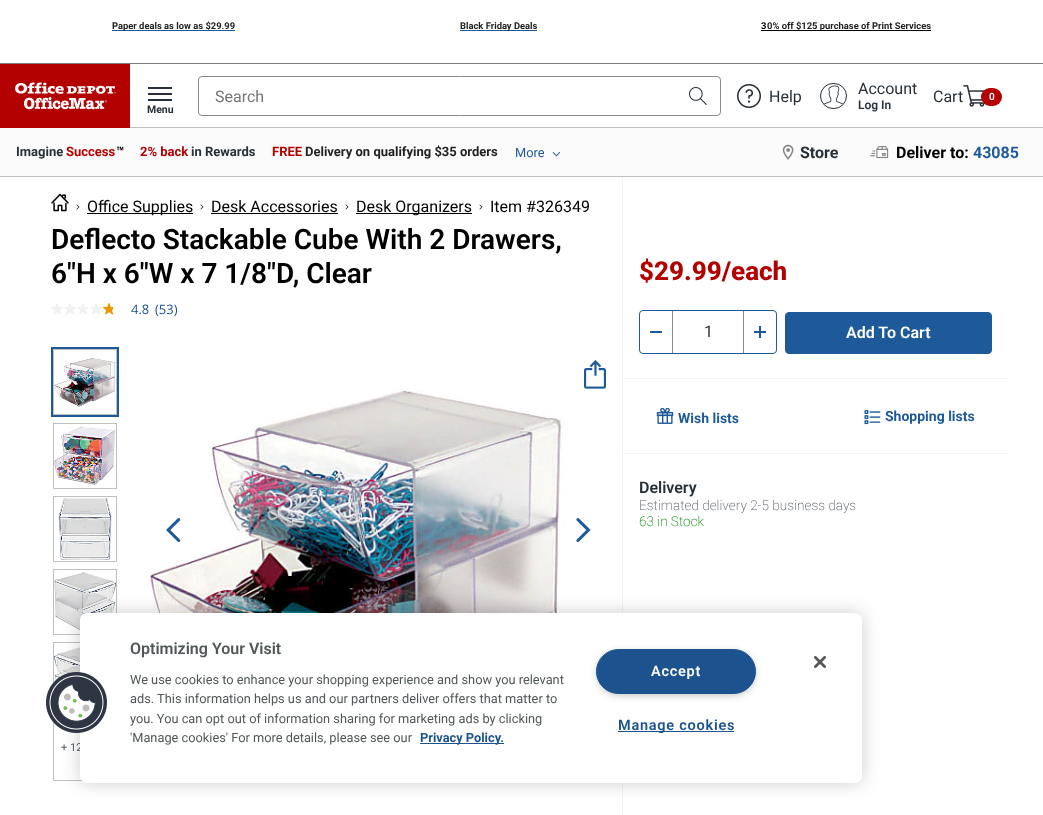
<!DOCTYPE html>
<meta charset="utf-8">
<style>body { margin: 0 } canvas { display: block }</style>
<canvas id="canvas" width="1043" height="815"></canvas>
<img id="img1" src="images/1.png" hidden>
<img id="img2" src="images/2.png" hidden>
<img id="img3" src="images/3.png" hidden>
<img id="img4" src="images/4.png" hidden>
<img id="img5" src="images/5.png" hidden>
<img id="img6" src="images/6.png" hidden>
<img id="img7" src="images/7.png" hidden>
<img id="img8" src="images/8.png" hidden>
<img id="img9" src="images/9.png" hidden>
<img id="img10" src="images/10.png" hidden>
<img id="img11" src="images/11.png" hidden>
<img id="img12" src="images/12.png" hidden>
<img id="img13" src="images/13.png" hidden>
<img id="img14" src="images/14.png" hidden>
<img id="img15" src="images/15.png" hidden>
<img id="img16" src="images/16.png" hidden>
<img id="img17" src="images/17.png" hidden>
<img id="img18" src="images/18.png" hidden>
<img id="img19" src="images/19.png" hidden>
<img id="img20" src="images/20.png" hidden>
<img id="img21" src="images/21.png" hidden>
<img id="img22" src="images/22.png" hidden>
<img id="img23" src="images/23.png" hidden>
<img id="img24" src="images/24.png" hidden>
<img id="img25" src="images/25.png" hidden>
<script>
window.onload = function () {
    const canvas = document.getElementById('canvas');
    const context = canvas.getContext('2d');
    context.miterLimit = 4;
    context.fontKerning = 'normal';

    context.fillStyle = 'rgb(255, 255, 255)';
    context.fillRect(0, 0, 1043, 815);
    context.fillStyle = 'rgb(128, 128, 128)';
    context.fillRect(0, 63, 1043, 1);
    context.fillStyle = 'rgb(30, 90, 153)';
    context.fillRect(112, 30, 91, 1);
    context.fillRect(460, 30, 77, 1);
    context.fillStyle = 'rgb(0, 0, 0)';
    context.fillRect(761, 30, 170, 1);
    context.fillStyle = 'rgb(190, 192, 195)';
    context.fillRect(130, 127, 913, 1);
    context.fillStyle = 'rgb(179, 0, 0)';
    context.fillRect(0, 64, 130, 64);
    context.drawImage(document.getElementById('img1'), 15, 82, 101, 28);
    context.beginPath();
    context.roundRect(198.5, 76.5, 522, 39, 3.5);
    context.strokeStyle = 'rgb(133, 140, 142)';
    context.stroke();
    context.drawImage(document.getElementById('img2'), 689, 87, 18, 18);
    context.drawImage(document.getElementById('img3'), 737, 84, 24, 24);
    context.beginPath();
    context.roundRect(820.5, 83.5, 26, 25, 12.5);
    context.strokeStyle = 'rgb(39, 48, 57)';
    context.stroke();
    context.drawImage(document.getElementById('img4'), 824, 85, 19, 20);
    context.drawImage(document.getElementById('img5'), 963, 85, 22, 22);
    context.beginPath();
    context.roundRect(981, 88, 21, 18, 9);
    context.fill();
    context.fillStyle = 'rgb(39, 48, 57)';
    context.fillRect(148, 87, 24, 2);
    context.fillRect(148, 93, 24, 2);
    context.fillRect(148, 99, 24, 2);
    context.fillStyle = 'rgb(251, 251, 251)';
    context.fillRect(0, 128, 1043, 48);
    context.fillStyle = 'rgb(190, 192, 195)';
    context.fillRect(0, 176, 1043, 1);
    context.drawImage(document.getElementById('img6'), 552, 152, 9, 5);
    context.drawImage(document.getElementById('img7'), 782, 144, 12, 16);
    context.drawImage(document.getElementById('img8'), 870, 146, 19, 13);
    context.fillStyle = 'rgb(243, 243, 243)';
    context.fillRect(622, 177, 1, 638);
    context.drawImage(document.getElementById('img9'), 51, 193, 18, 19);
    context.drawImage(document.getElementById('img10'), 76, 204, 4, 6);
    context.fillStyle = 'rgb(0, 0, 0)';
    context.fillRect(87, 213, 106, 1);
    context.drawImage(document.getElementById('img10'), 200, 204, 4, 6);
    context.fillRect(211, 213, 127, 1);
    context.drawImage(document.getElementById('img10'), 345, 204, 4, 6);
    context.fillRect(356, 213, 116, 1);
    context.drawImage(document.getElementById('img10'), 479, 204, 4, 6);
    context.drawImage(document.getElementById('img11'), 51, 303, 12, 12);
    context.drawImage(document.getElementById('img11'), 64, 303, 12, 12);
    context.drawImage(document.getElementById('img11'), 77, 303, 12, 12);
    context.drawImage(document.getElementById('img11'), 90, 303, 12, 12);
    context.drawImage(document.getElementById('img12'), 103, 303, 12, 12);
    context.drawImage(document.getElementById('img13'), 584, 360, 22, 29);
    context.drawImage(document.getElementById('img14'), 146, 389, 419, 224);
    context.drawImage(document.getElementById('img15'), 166, 518, 15, 24);
    context.drawImage(document.getElementById('img16'), 576, 518, 15, 24);
    context.strokeStyle = 'rgb(30, 90, 153)';
    context.lineWidth = 2;
    context.strokeRect(52, 348, 66, 68);
    context.strokeStyle = 'rgb(190, 192, 195)';
    context.lineWidth = 1;
    context.strokeRect(53.5, 349.5, 63, 65);
    context.drawImage(document.getElementById('img17'), 54, 358, 62, 49);
    context.strokeRect(53.5, 423.5, 63, 65);
    context.drawImage(document.getElementById('img18'), 54, 426, 62, 59);
    context.strokeRect(53.5, 496.5, 63, 65);
    context.drawImage(document.getElementById('img19'), 58, 498, 54, 62);
    context.strokeRect(53.5, 569.5, 63, 65);
    context.drawImage(document.getElementById('img20'), 54, 572, 62, 60);
    context.strokeRect(53.5, 642.5, 63, 65);
    context.drawImage(document.getElementById('img21'), 54, 645, 26, 37);
    context.strokeRect(53.5, 715.5, 65, 65);
    context.fillStyle = 'rgb(243, 243, 243)';
    context.fillRect(623, 378, 385, 1);
    context.beginPath();
    context.roundRect(639.5, 310.5, 137, 43, 3.5);
    context.strokeStyle = 'rgb(30, 90, 153)';
    context.stroke();
    context.fillStyle = 'rgb(30, 90, 153)';
    context.fillRect(650, 331, 12, 2);
    context.fillStyle = 'rgb(133, 140, 142)';
    context.fillRect(743, 311, 1, 42);
    context.fillRect(672, 311, 1, 42);
    context.fillStyle = 'rgb(30, 90, 153)';
    context.fillRect(754, 331, 12, 2);
    context.fillRect(759, 326, 2, 12);
    context.beginPath();
    context.roundRect(785.5, 312.5, 206, 41, 3.5);
    context.fill();
    context.stroke();
    context.drawImage(document.getElementById('img22'), 656, 408, 18, 16);
    context.drawImage(document.getElementById('img23'), 864, 410, 17, 15);
    context.fillStyle = 'rgb(243, 243, 243)';
    context.fillRect(623, 453, 385, 1);
    context.fillStyle = 'rgba(0, 0, 0, 0.2)';
    context.filter = 'blur(9px)';
    context.beginPath();
    context.roundRect(80, 613, 782, 170, 7);
    context.fill();
    context.filter = 'none';
    context.font = 'bold 9.4px Roboto';
    context.fillStyle = 'rgb(34, 34, 34)';
    context.fillText('Paper deals as low as $29.99', 112, 29);
    context.fillStyle = 'rgb(30, 90, 153)';
    context.fillRect(203, 30, 32, 1);
    context.fillStyle = 'rgb(34, 34, 34)';
    context.fillText('Black Friday Deals', 460, 29);
    context.fillStyle = 'rgb(0, 0, 0)';
    context.fillText('3', 761, 29);
    context.fillStyle = 'rgb(34, 34, 34)';
    context.fillText('0% off $125 purchase of Print Services', 767, 29);
    context.font = '16px Roboto';
    context.fillStyle = 'rgb(117, 117, 117)';
    context.fillText('Search', 215, 102);
    context.fillStyle = 'rgb(39, 48, 57)';
    context.fillText('Help', 769, 102);
    context.fillText('Account', 858, 94);
    context.font = '600 12px Roboto';
    context.fillText('Log In', 858, 109);
    context.font = '16px Roboto';
    context.fillText('Cart', 933, 102);
    context.font = '600 10px Roboto';
    context.fillStyle = 'rgb(255, 255, 255)';
    context.fillText('0', 989, 100);
    context.font = 'bold 10.5px Roboto';
    context.fillStyle = 'rgb(39, 48, 57)';
    context.fillText('Menu', 147, 113);
    context.font = 'bold 13px Roboto';
    context.fillText('Imagine', 16, 156);
    context.fillStyle = 'rgb(179, 0, 0)';
    context.fillText('Success', 66, 156);
    context.fillStyle = 'rgb(0, 0, 0)';
    context.fillText('™', 116, 156);
    context.fillStyle = 'rgb(179, 0, 0)';
    context.fillText('2% back', 140, 156);
    context.fillStyle = 'rgb(39, 48, 57)';
    context.fillText('in Rewards', 191, 156);
    context.fillStyle = 'rgb(179, 0, 0)';
    context.fillText('FREE', 272, 156);
    context.fillStyle = 'rgb(34, 34, 34)';
    context.fillText('Delivery on qualifying $35 orders', 305, 156);
    context.font = '12.8px Roboto';
    context.fillStyle = 'rgb(30, 90, 153)';
    context.fillText('More', 515, 157);
    context.font = 'bold 16px Roboto';
    context.fillStyle = 'rgb(39, 48, 57)';
    context.fillText('Store', 800, 158);
    context.fillStyle = 'rgb(0, 0, 0)';
    context.fillText('Deliver to:', 896, 158);
    context.fillStyle = 'rgb(30, 90, 153)';
    context.fillText('43085', 973, 158);
    context.font = '16px Roboto';
    context.fillStyle = 'rgb(0, 0, 0)';
    context.fillText('Office Supplies', 87, 212);
    context.fillText('Desk Accessories', 211, 212);
    context.fillText('Desk Organizers', 356, 212);
    context.fillText('Item #326349', 490, 212);
    context.font = '600 28px Roboto';
    context.fillText('Deflecto Stackable Cube With 2 Drawers,', 51, 249);
    context.fillText('6"H x 6"W x 7 1/8"D, Clear', 51, 283);
    context.font = '13px Open Sans';
    context.fillStyle = 'rgb(28, 82, 141)';
    context.fillText('4.8', 131, 314);
    context.fillText('(53)', 155, 314);
    context.font = '11px Roboto';
    context.fillStyle = 'rgb(82, 89, 97)';
    context.fillText('+ 12', 61, 751);
    context.font = '800 26px Roboto';
    context.fillStyle = 'rgb(179, 0, 0)';
    context.fillText('$29.99/each', 639, 280);
    context.font = '16px Roboto';
    context.fillStyle = 'rgb(39, 48, 57)';
    context.fillText('1', 704, 337);
    context.font = '600 16px Roboto';
    context.fillStyle = 'rgb(255, 255, 255)';
    context.fillText('Add To Cart', 846, 338);
    context.font = 'bold 14px Roboto';
    context.fillStyle = 'rgb(30, 90, 153)';
    context.fillText('Wish lists', 678, 423);
    context.fillText('Shopping lists', 885, 421);
    context.font = '600 16px Roboto';
    context.fillStyle = 'rgb(39, 48, 57)';
    context.fillText('Delivery', 639, 493);
    context.font = '200 13.6px Roboto';
    context.fillStyle = 'rgb(82, 89, 97)';
    context.fillText('Estimated delivery 2-5 business days', 639, 510);
    context.fillStyle = 'rgb(0, 136, 0)';
    context.fillText('63 in Stock', 639, 526);
    context.fillStyle = 'rgb(255, 255, 255)';
    context.beginPath();
    context.roundRect(80, 613, 782, 170, 7);
    context.fill();
    context.drawImage(document.getElementById('img24'), 46, 672, 61, 61);
    context.font = '600 16px Roboto';
    context.fillStyle = 'rgb(81, 87, 88)';
    context.fillText('Optimizing Your Visit', 130, 654);
    context.font = '12.8px Roboto';
    context.fillText('We use cookies to enhance your shopping experience and show you relevant', 130, 684);
    context.fillText('ads. This information helps us and our partners deliver offers that matter to', 130, 703);
    context.fillText('you. You can opt out of information sharing for marketing ads by clicking', 130, 723);
    context.fillText('\'Manage cookies\' For more details, please see our', 130, 742);
    context.fillStyle = 'rgb(28, 82, 141)';
    context.fillRect(420, 743, 84, 1);
    context.font = 'bold 12.8px Roboto';
    context.fillText('Privacy Policy.', 420, 742);
    context.fillStyle = 'rgb(153, 153, 153)';
    context.filter = 'blur(5px)';
    context.beginPath();
    context.roundRect(599, 654, 154, 39, 19.5);
    context.fill();
    context.filter = 'none';
    context.fillStyle = 'rgb(28, 82, 141)';
    context.beginPath();
    context.roundRect(596.5, 649.5, 159, 44, 22);
    context.fill();
    context.strokeStyle = 'rgb(28, 82, 141)';
    context.stroke();
    context.letterSpacing = '0.75px';
    context.font = '600 14.5px Roboto';
    context.fillStyle = 'rgb(255, 255, 255)';
    context.fillText('Accept', 651, 676);
    context.fillStyle = 'rgb(28, 82, 141)';
    context.fillRect(618, 731, 116, 1);
    context.fillText('Manage cookies', 618, 730);
    context.drawImage(document.getElementById('img25'), 814, 656, 12, 12);
};
</script>
